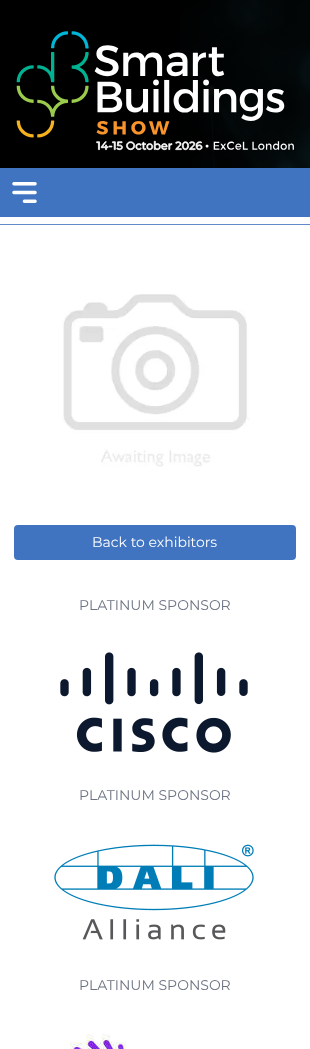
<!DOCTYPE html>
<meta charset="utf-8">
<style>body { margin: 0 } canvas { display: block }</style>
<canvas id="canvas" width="310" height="1049"></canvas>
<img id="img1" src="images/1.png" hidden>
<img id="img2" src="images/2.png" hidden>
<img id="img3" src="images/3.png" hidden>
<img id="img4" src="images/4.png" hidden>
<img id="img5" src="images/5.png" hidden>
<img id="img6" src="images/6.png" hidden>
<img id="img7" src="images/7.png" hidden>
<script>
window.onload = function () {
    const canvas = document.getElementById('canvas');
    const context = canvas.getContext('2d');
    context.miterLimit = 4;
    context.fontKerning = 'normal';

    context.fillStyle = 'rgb(255, 255, 255)';
    context.fillRect(0, 0, 310, 1049);
    context.fillStyle = 'rgb(0, 0, 0)';
    context.fillRect(0, 0, 310, 168);
    context.drawImage(document.getElementById('img1'), 180, 0, 130, 168);
    context.drawImage(document.getElementById('img2'), 16, 31, 278, 120);
    context.fillStyle = 'rgb(65, 116, 192)';
    context.fillRect(0, 168, 310, 49);
    context.drawImage(document.getElementById('img3'), 12, 182, 25, 21);
    context.fillStyle = 'rgb(96, 138, 202)';
    context.fillRect(0, 224, 310, 1);
    context.drawImage(document.getElementById('img4'), 62, 294, 187, 173);
    context.fillStyle = 'rgb(65, 116, 192)';
    context.beginPath();
    context.roundRect(14, 525, 282, 35, 4);
    context.fill();
    context.drawImage(document.getElementById('img5'), 60, 652, 188, 101);
    context.drawImage(document.getElementById('img6'), 54, 844, 200, 96);
    context.drawImage(document.getElementById('img7'), 70, 1034, 56, 15);
    context.font = '14px Montserrat';
    context.fillStyle = 'rgb(255, 255, 255)';
    context.fillText('Back to exhibitors', 92, 547);
    context.fillStyle = 'rgb(107, 114, 128)';
    context.fillText('PLATINUM SPONSOR', 79, 610);
    context.fillText('PLATINUM SPONSOR', 79, 800);
    context.fillText('PLATINUM SPONSOR', 79, 990);
};
</script>
